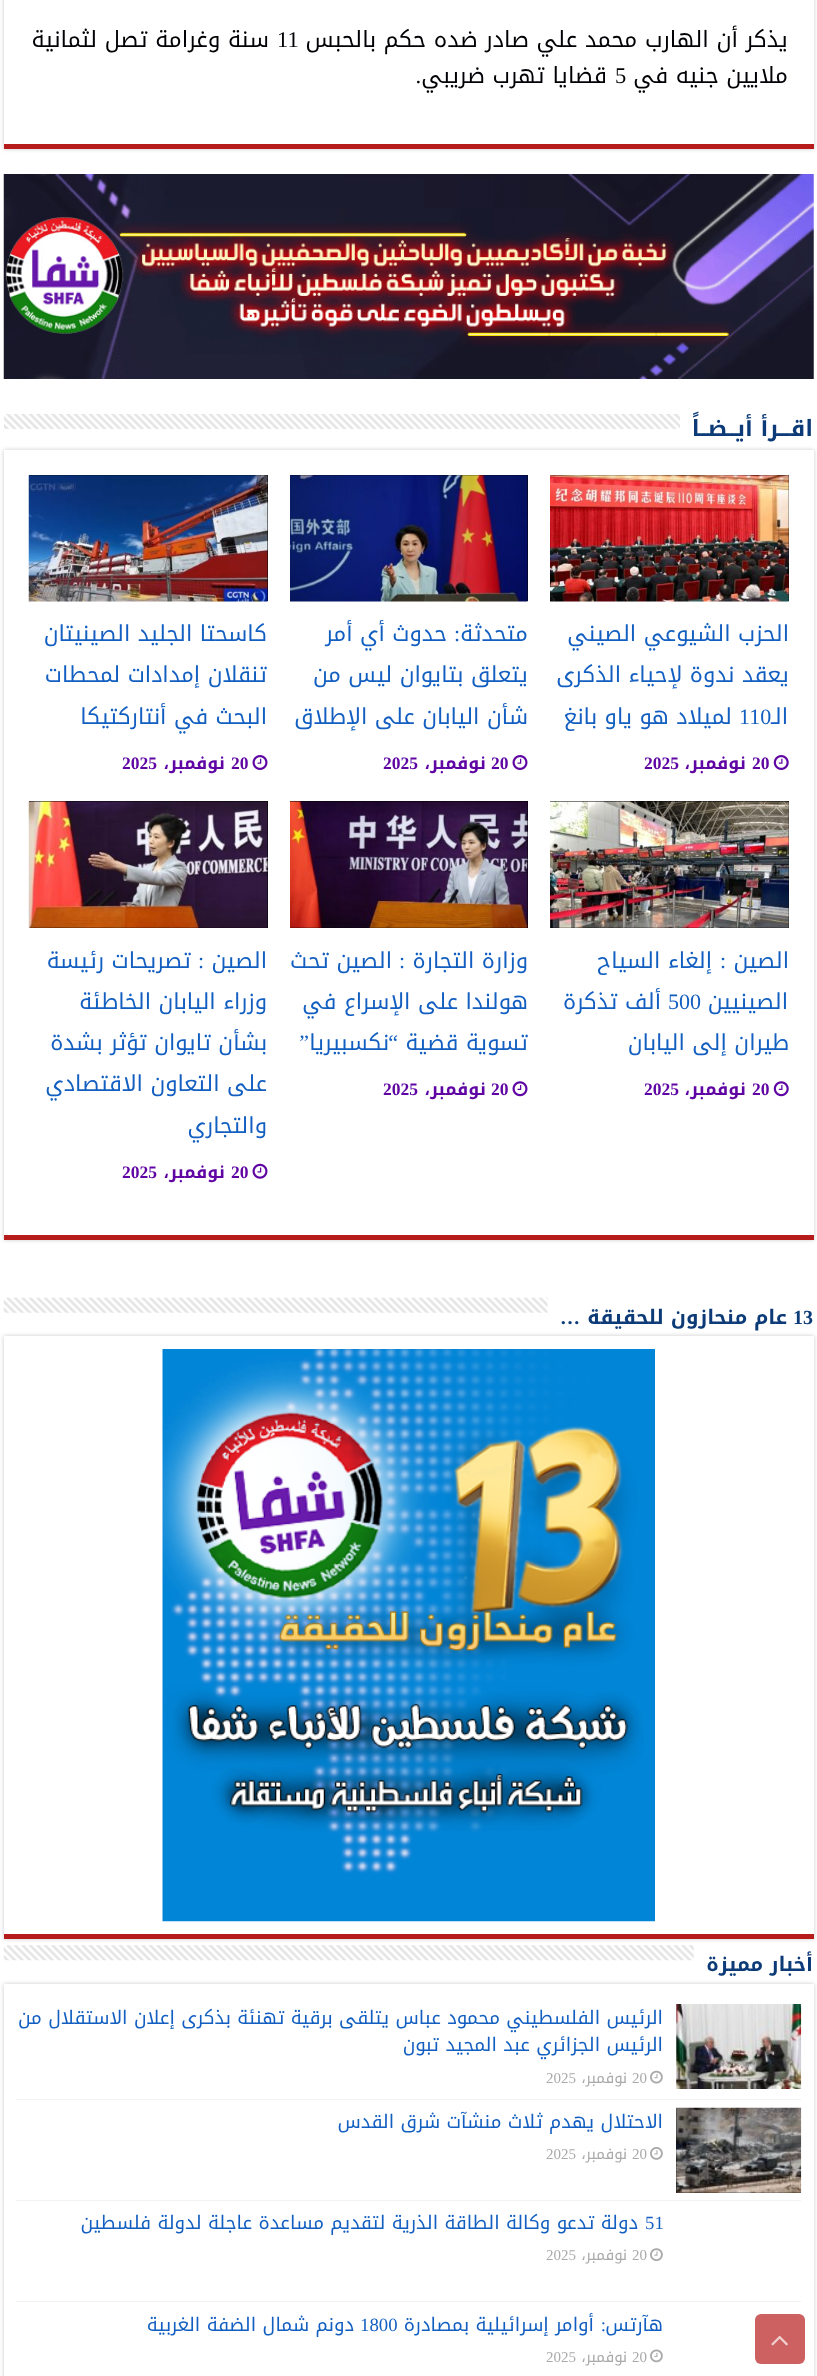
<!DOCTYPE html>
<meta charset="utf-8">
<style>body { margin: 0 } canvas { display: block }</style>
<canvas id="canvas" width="817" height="2376"></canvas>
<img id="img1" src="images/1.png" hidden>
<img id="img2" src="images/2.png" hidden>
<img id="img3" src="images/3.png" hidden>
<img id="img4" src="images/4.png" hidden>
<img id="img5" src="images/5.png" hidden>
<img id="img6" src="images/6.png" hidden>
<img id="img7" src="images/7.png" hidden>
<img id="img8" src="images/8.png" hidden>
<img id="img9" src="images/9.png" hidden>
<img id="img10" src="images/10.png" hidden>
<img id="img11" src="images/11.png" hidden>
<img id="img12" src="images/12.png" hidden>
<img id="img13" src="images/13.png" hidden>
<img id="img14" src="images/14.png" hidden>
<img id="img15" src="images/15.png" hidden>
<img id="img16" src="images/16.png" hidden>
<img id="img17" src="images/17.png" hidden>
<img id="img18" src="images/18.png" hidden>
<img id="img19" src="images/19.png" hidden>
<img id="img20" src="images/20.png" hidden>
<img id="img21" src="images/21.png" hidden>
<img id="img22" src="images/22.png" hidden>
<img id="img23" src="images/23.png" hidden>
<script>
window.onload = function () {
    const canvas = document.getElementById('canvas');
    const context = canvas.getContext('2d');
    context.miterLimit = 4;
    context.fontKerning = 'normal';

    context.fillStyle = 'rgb(255, 255, 255)';
    context.fillRect(0, 0, 817, 2376);
    context.fillStyle = 'rgb(202, 202, 202)';
    context.filter = 'blur(2px)';
    context.beginPath();
    context.rect(4, -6, 810, 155);
    context.fill();
    context.filter = 'none';
    context.fillStyle = 'rgb(255, 255, 255)';
    context.fillRect(4, 0, 810, 144);
    context.fillStyle = 'rgb(183, 28, 28)';
    context.fillRect(4, 144, 810, 5);
    context.drawImage(document.getElementById('img1'), 3, 174, 811, 205);
    context.drawImage(document.getElementById('img2'), 4, 414, 676, 15);
    context.fillStyle = 'rgb(202, 202, 202)';
    context.filter = 'blur(2px)';
    context.beginPath();
    context.rect(4, 450, 810, 790);
    context.fill();
    context.filter = 'none';
    context.fillStyle = 'rgb(255, 255, 255)';
    context.fillRect(4, 450, 810, 785);
    context.fillStyle = 'rgb(183, 28, 28)';
    context.fillRect(4, 1235, 810, 5);
    context.fillStyle = 'rgb(0, 0, 0)';
    context.fillRect(550, 475, 239, 126);
    context.drawImage(document.getElementById('img3'), 550, 475, 239, 127);
    context.drawImage(document.getElementById('img4'), 773, 755, 16, 15);
    context.fillRect(290, 475, 238, 126);
    context.drawImage(document.getElementById('img5'), 290, 475, 238, 127);
    context.drawImage(document.getElementById('img6'), 512, 755, 16, 15);
    context.fillRect(29, 475, 239, 126);
    context.drawImage(document.getElementById('img7'), 28, 475, 240, 127);
    context.drawImage(document.getElementById('img6'), 252, 755, 16, 15);
    context.fillRect(550, 801, 239, 127);
    context.drawImage(document.getElementById('img8'), 550, 801, 239, 127);
    context.drawImage(document.getElementById('img9'), 773, 1081, 16, 16);
    context.fillRect(290, 801, 238, 127);
    context.drawImage(document.getElementById('img10'), 290, 801, 238, 127);
    context.drawImage(document.getElementById('img11'), 512, 1081, 16, 16);
    context.fillRect(29, 801, 239, 127);
    context.drawImage(document.getElementById('img12'), 28, 801, 240, 127);
    context.drawImage(document.getElementById('img13'), 252, 1163, 16, 16);
    context.drawImage(document.getElementById('img14'), 3, 1297, 545, 16);
    context.fillStyle = 'rgb(202, 202, 202)';
    context.filter = 'blur(2px)';
    context.beginPath();
    context.rect(4, 1336, 810, 603);
    context.fill();
    context.filter = 'none';
    context.fillStyle = 'rgb(255, 255, 255)';
    context.fillRect(4, 1336, 810, 598);
    context.fillStyle = 'rgb(183, 28, 28)';
    context.fillRect(4, 1934, 810, 5);
    context.drawImage(document.getElementById('img15'), 162, 1349, 493, 573);
    context.drawImage(document.getElementById('img16'), 3, 1945, 691, 16);
    context.fillStyle = 'rgb(202, 202, 202)';
    context.filter = 'blur(2px)';
    context.beginPath();
    context.rect(4, 1984, 810, 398);
    context.fill();
    context.filter = 'none';
    context.fillStyle = 'rgb(255, 255, 255)';
    context.fillRect(4, 1984, 810, 392);
    context.fillStyle = 'rgb(242, 242, 242)';
    context.fillRect(16, 2099, 785, 1);
    context.drawImage(document.getElementById('img17'), 676, 2004, 126, 85);
    context.drawImage(document.getElementById('img18'), 650, 2070, 13, 14);
    context.fillRect(16, 2200, 785, 1);
    context.fillStyle = 'rgb(0, 0, 0)';
    context.fillRect(676, 2108, 125, 85);
    context.drawImage(document.getElementById('img19'), 676, 2107, 126, 86);
    context.drawImage(document.getElementById('img20'), 650, 2147, 13, 13);
    context.fillStyle = 'rgb(242, 242, 242)';
    context.fillRect(16, 2301, 785, 1);
    context.drawImage(document.getElementById('img21'), 650, 2248, 13, 13);
    context.drawImage(document.getElementById('img22'), 650, 2349, 13, 14);
    context.fillStyle = 'rgb(205, 96, 96)';
    context.beginPath();
    context.roundRect(755, 2314, 50, 50, 6);
    context.fill();
    context.drawImage(document.getElementById('img23'), 771, 2335, 17, 11);
    context.direction = 'rtl';
    context.font = '22.5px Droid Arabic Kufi';
    context.fillStyle = 'rgb(2, 0, 5)';
    context.fillText('يذكر أن الهارب محمد علي صادر ضده حكم بالحبس', 788, 47);
    context.direction = 'ltr';
    context.font = '22.5px Liberation Serif';
    context.fillText('11', 277, 47);
    context.direction = 'rtl';
    context.font = '22.5px Droid Arabic Kufi';
    context.fillText('سنة وغرامة تصل لثمانية', 269, 47);
    context.fillText('ملايين جنيه في', 788, 83);
    context.direction = 'ltr';
    context.font = '22.5px Liberation Serif';
    context.fillText('5', 615, 83);
    context.direction = 'rtl';
    context.font = '22.5px Droid Arabic Kufi';
    context.fillText('قضايا تهرب ضريبي', 607, 83);
    context.font = '22.5px Liberation Serif';
    context.fillText('.', 421, 83);
    context.font = 'bold 22.5px Droid Arabic Kufi';
    context.fillStyle = 'rgb(12, 59, 120)';
    context.fillText('اقـــرأ أيــضــاً', 813, 436);
    context.font = '22px Droid Arabic Kufi';
    context.fillStyle = 'rgb(19, 95, 193)';
    context.fillText('الحزب الشيوعي الصيني', 789, 641);
    context.fillText('يعقد ندوة لإحياء الذكرى', 789, 682);
    context.fillText('الـ', 788, 724);
    context.direction = 'ltr';
    context.font = '22px Liberation Serif';
    context.fillText('110', 739, 724);
    context.direction = 'rtl';
    context.font = '22px Droid Arabic Kufi';
    context.fillText('لميلاد هو ياو بانغ', 732, 724);
    context.direction = 'ltr';
    context.font = 'bold 17.5px Liberation Serif';
    context.fillStyle = 'rgb(95, 5, 163)';
    context.fillText('20', 752, 769);
    context.direction = 'rtl';
    context.font = 'bold 17.5px Droid Arabic Kufi';
    context.fillText('نوفمبر،', 746, 769);
    context.direction = 'ltr';
    context.font = 'bold 17.5px Liberation Serif';
    context.fillText('2025', 644, 769);
    context.direction = 'rtl';
    context.font = '22px Droid Arabic Kufi';
    context.fillStyle = 'rgb(19, 95, 193)';
    context.fillText('متحدثة', 528, 641);
    context.font = '22px Liberation Serif';
    context.fillText(':', 460, 641);
    context.font = '22px Droid Arabic Kufi';
    context.fillText('حدوث أي أمر', 447, 641);
    context.fillText('يتعلق بتايوان ليس من', 528, 682);
    context.fillText('شأن اليابان على الإطلاق', 528, 724);
    context.direction = 'ltr';
    context.font = 'bold 17.5px Liberation Serif';
    context.fillStyle = 'rgb(95, 5, 163)';
    context.fillText('20', 491, 769);
    context.direction = 'rtl';
    context.font = 'bold 17.5px Droid Arabic Kufi';
    context.fillText('نوفمبر،', 486, 769);
    context.direction = 'ltr';
    context.font = 'bold 17.5px Liberation Serif';
    context.fillText('2025', 383, 769);
    context.direction = 'rtl';
    context.font = '22px Droid Arabic Kufi';
    context.fillStyle = 'rgb(19, 95, 193)';
    context.fillText('كاسحتا الجليد الصينيتان', 267, 641);
    context.fillText('تنقلان إمدادات لمحطات', 267, 682);
    context.fillText('البحث في أنتاركتيكا', 267, 724);
    context.direction = 'ltr';
    context.font = 'bold 17.5px Liberation Serif';
    context.fillStyle = 'rgb(95, 5, 163)';
    context.fillText('20', 231, 769);
    context.direction = 'rtl';
    context.font = 'bold 17.5px Droid Arabic Kufi';
    context.fillText('نوفمبر،', 225, 769);
    context.direction = 'ltr';
    context.font = 'bold 17.5px Liberation Serif';
    context.fillText('2025', 122, 769);
    context.direction = 'rtl';
    context.font = '22px Droid Arabic Kufi';
    context.fillStyle = 'rgb(19, 95, 193)';
    context.fillText('الصين', 789, 968);
    context.font = '22px Liberation Serif';
    context.fillText(':', 726, 968);
    context.font = '22px Droid Arabic Kufi';
    context.fillText('إلغاء السياح', 712, 968);
    context.fillText('الصينيين', 788, 1009);
    context.direction = 'ltr';
    context.font = '22px Liberation Serif';
    context.fillText('500', 668, 1009);
    context.direction = 'rtl';
    context.font = '22px Droid Arabic Kufi';
    context.fillText('ألف تذكرة', 661, 1009);
    context.fillText('طيران إلى اليابان', 789, 1050);
    context.direction = 'ltr';
    context.font = 'bold 17.5px Liberation Serif';
    context.fillStyle = 'rgb(95, 5, 163)';
    context.fillText('20', 752, 1095);
    context.direction = 'rtl';
    context.font = 'bold 17.5px Droid Arabic Kufi';
    context.fillText('نوفمبر،', 746, 1095);
    context.direction = 'ltr';
    context.font = 'bold 17.5px Liberation Serif';
    context.fillText('2025', 644, 1095);
    context.direction = 'rtl';
    context.font = '22px Droid Arabic Kufi';
    context.fillStyle = 'rgb(19, 95, 193)';
    context.fillText('وزارة التجارة', 528, 968);
    context.font = '22px Liberation Serif';
    context.fillText(':', 405, 968);
    context.font = '22px Droid Arabic Kufi';
    context.fillText('الصين تحث', 392, 968);
    context.fillText('هولندا على الإسراع في', 528, 1009);
    context.fillText('تسوية قضية', 528, 1050);
    context.font = '22px Liberation Serif';
    context.fillText('“', 398, 1050);
    context.font = '22px Droid Arabic Kufi';
    context.fillText('نكسبيريا', 389, 1050);
    context.font = '22px Liberation Serif';
    context.fillText('”', 309, 1050);
    context.direction = 'ltr';
    context.font = 'bold 17.5px Liberation Serif';
    context.fillStyle = 'rgb(95, 5, 163)';
    context.fillText('20', 491, 1095);
    context.direction = 'rtl';
    context.font = 'bold 17.5px Droid Arabic Kufi';
    context.fillText('نوفمبر،', 486, 1095);
    context.direction = 'ltr';
    context.font = 'bold 17.5px Liberation Serif';
    context.fillText('2025', 383, 1095);
    context.direction = 'rtl';
    context.font = '22px Droid Arabic Kufi';
    context.fillStyle = 'rgb(19, 95, 193)';
    context.fillText('الصين', 267, 968);
    context.font = '22px Liberation Serif';
    context.fillText(':', 204, 968);
    context.font = '22px Droid Arabic Kufi';
    context.fillText('تصريحات رئيسة', 191, 968);
    context.fillText('وزراء اليابان الخاطئة', 267, 1009);
    context.fillText('بشأن تايوان تؤثر بشدة', 267, 1050);
    context.fillText('على التعاون الاقتصادي', 267, 1091);
    context.fillText('والتجاري', 267, 1133);
    context.direction = 'ltr';
    context.font = 'bold 17.5px Liberation Serif';
    context.fillStyle = 'rgb(95, 5, 163)';
    context.fillText('20', 231, 1178);
    context.direction = 'rtl';
    context.font = 'bold 17.5px Droid Arabic Kufi';
    context.fillText('نوفمبر،', 225, 1178);
    context.direction = 'ltr';
    context.font = 'bold 17.5px Liberation Serif';
    context.fillText('2025', 122, 1178);
    context.font = 'bold 20px Liberation Serif';
    context.fillStyle = 'rgb(12, 59, 120)';
    context.fillText('13', 793, 1324);
    context.direction = 'rtl';
    context.font = 'bold 20px Droid Arabic Kufi';
    context.fillText('عام منحازون للحقيقة', 787, 1324);
    context.font = 'bold 20px Liberation Serif';
    context.fillText('…', 580, 1324);
    context.font = 'bold 20px Droid Arabic Kufi';
    context.fillText('أخبار مميزة', 813, 1971);
    context.font = '18.75px Droid Arabic Kufi';
    context.fillStyle = 'rgb(19, 95, 193)';
    context.fillText('الرئيس الفلسطيني محمود عباس يتلقى برقية تهنئة بذكرى إعلان الاستقلال من', 663, 2024);
    context.fillText('الرئيس الجزائري عبد المجيد تبون', 663, 2051);
    context.direction = 'ltr';
    context.font = '15px Liberation Serif';
    context.fillStyle = 'rgb(170, 170, 170)';
    context.fillText('20', 632, 2083);
    context.direction = 'rtl';
    context.font = '15px Droid Arabic Kufi';
    context.fillText('نوفمبر،', 627, 2083);
    context.direction = 'ltr';
    context.font = '15px Liberation Serif';
    context.fillText('2025', 546, 2083);
    context.direction = 'rtl';
    context.font = '18.75px Droid Arabic Kufi';
    context.fillStyle = 'rgb(19, 95, 193)';
    context.fillText('الاحتلال يهدم ثلاث منشآت شرق القدس', 663, 2128);
    context.direction = 'ltr';
    context.font = '15px Liberation Serif';
    context.fillStyle = 'rgb(170, 170, 170)';
    context.fillText('20', 632, 2159);
    context.direction = 'rtl';
    context.font = '15px Droid Arabic Kufi';
    context.fillText('نوفمبر،', 627, 2159);
    context.direction = 'ltr';
    context.font = '15px Liberation Serif';
    context.fillText('2025', 546, 2159);
    context.font = '18.75px Liberation Serif';
    context.fillStyle = 'rgb(19, 95, 193)';
    context.fillText('51', 645, 2229);
    context.direction = 'rtl';
    context.font = '18.75px Droid Arabic Kufi';
    context.fillText('دولة تدعو وكالة الطاقة الذرية لتقديم مساعدة عاجلة لدولة فلسطين', 638, 2229);
    context.direction = 'ltr';
    context.font = '15px Liberation Serif';
    context.fillStyle = 'rgb(170, 170, 170)';
    context.fillText('20', 632, 2260);
    context.direction = 'rtl';
    context.font = '15px Droid Arabic Kufi';
    context.fillText('نوفمبر،', 627, 2260);
    context.direction = 'ltr';
    context.font = '15px Liberation Serif';
    context.fillText('2025', 546, 2260);
    context.direction = 'rtl';
    context.font = '18.75px Droid Arabic Kufi';
    context.fillStyle = 'rgb(19, 95, 193)';
    context.fillText('هآرتس', 663, 2331);
    context.font = '18.75px Liberation Serif';
    context.fillText(':', 606, 2331);
    context.font = '18.75px Droid Arabic Kufi';
    context.fillText('أوامر إسرائيلية بمصادرة', 594, 2331);
    context.direction = 'ltr';
    context.font = '18.75px Liberation Serif';
    context.fillText('1800', 360, 2331);
    context.direction = 'rtl';
    context.font = '18.75px Droid Arabic Kufi';
    context.fillText('دونم شمال الضفة الغربية', 354, 2331);
    context.direction = 'ltr';
    context.font = '15px Liberation Serif';
    context.fillStyle = 'rgb(170, 170, 170)';
    context.fillText('20', 632, 2362);
    context.direction = 'rtl';
    context.font = '15px Droid Arabic Kufi';
    context.fillText('نوفمبر،', 627, 2362);
    context.direction = 'ltr';
    context.font = '15px Liberation Serif';
    context.fillText('2025', 546, 2362);
};
</script>
